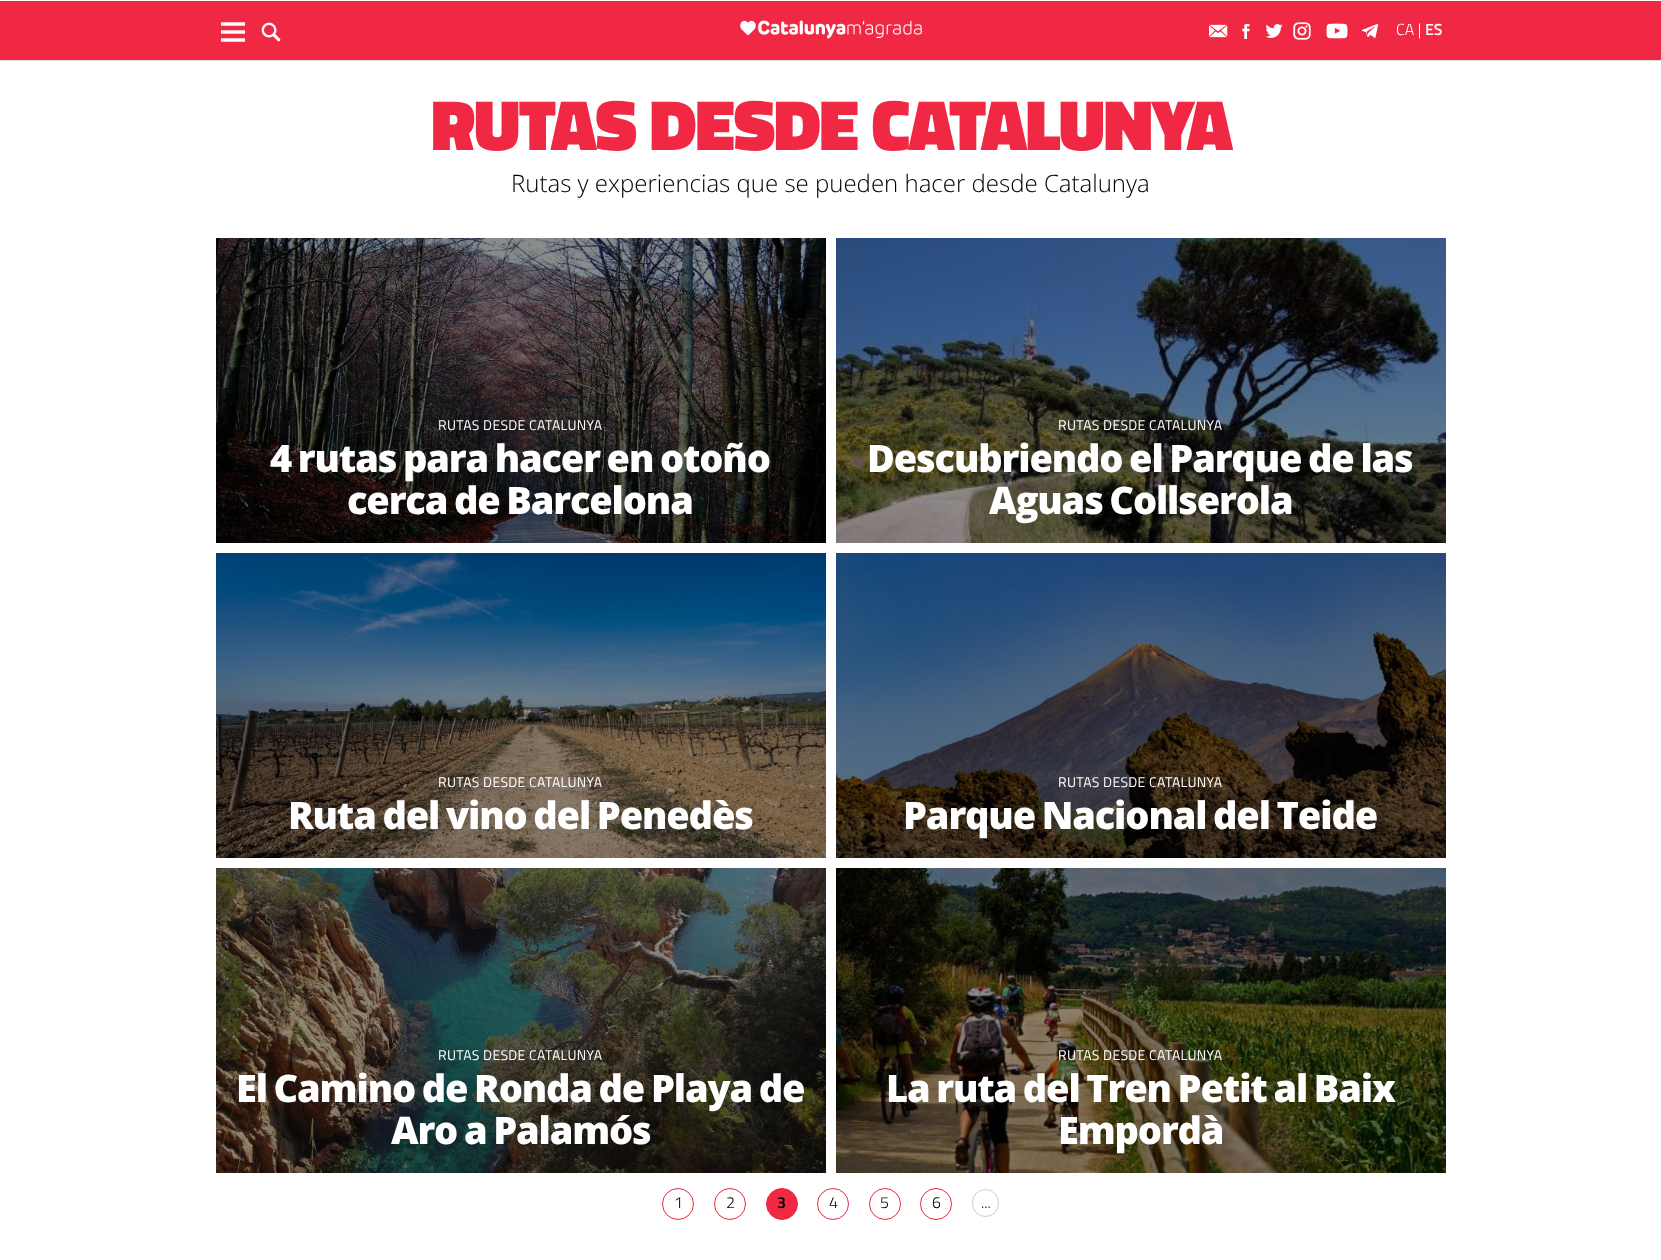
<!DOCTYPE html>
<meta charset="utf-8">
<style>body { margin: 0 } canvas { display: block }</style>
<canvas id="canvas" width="1661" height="1260"></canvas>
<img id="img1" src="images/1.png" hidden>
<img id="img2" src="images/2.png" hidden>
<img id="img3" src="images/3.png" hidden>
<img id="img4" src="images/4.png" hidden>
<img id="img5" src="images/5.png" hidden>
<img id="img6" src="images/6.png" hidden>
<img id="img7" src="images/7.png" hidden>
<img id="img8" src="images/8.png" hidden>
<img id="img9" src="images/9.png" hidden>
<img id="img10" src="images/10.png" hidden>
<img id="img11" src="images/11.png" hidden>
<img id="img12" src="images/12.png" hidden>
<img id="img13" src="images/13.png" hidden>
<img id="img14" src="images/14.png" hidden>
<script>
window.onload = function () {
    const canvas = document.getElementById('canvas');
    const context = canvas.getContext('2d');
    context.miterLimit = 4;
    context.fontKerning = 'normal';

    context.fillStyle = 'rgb(255, 255, 255)';
    context.fillRect(0, 0, 1661, 1260);
    context.fillStyle = 'rgb(240, 40, 68)';
    context.fillRect(0, 1, 1661, 59);
    context.fillStyle = 'rgb(217, 217, 219)';
    context.fillRect(0, 60, 1661, 1);
    context.drawImage(document.getElementById('img1'), 740, 20, 182, 19);
    context.save();
    context.beginPath();
    context.rect(221, 22, 24, 20);
    context.clip();
    context.beginPath();
    context.moveTo(221, 22);
    context.lineTo(221, 42);
    context.lineTo(245.5, 42);
    context.lineTo(245.5, 22);
    context.closePath();
    context.clip();
    context.beginPath();
    context.moveTo(221, 24);
    context.lineTo(245.5, 24);
    context.strokeStyle = 'rgb(255, 255, 255)';
    context.lineWidth = 3.4;
    context.stroke();
    context.restore();
    context.save();
    context.beginPath();
    context.rect(221, 22, 24, 20);
    context.clip();
    context.beginPath();
    context.moveTo(221, 32);
    context.lineTo(245.5, 32);
    context.strokeStyle = 'rgb(255, 255, 255)';
    context.lineWidth = 3.4;
    context.stroke();
    context.restore();
    context.save();
    context.beginPath();
    context.rect(221, 22, 24, 20);
    context.clip();
    context.beginPath();
    context.moveTo(221, 22);
    context.lineTo(221, 42);
    context.lineTo(245.5, 42);
    context.lineTo(245.5, 22);
    context.closePath();
    context.clip();
    context.beginPath();
    context.moveTo(221, 40);
    context.lineTo(245.5, 40);
    context.strokeStyle = 'rgb(255, 255, 255)';
    context.lineWidth = 3.4;
    context.stroke();
    context.restore();
    context.drawImage(document.getElementById('img2'), 261, 22, 20, 20);
    context.drawImage(document.getElementById('img3'), 1209, 24, 19, 14);
    context.drawImage(document.getElementById('img4'), 1242, 24, 8, 15);
    context.drawImage(document.getElementById('img5'), 1265, 24, 18, 14);
    context.drawImage(document.getElementById('img6'), 1293, 22, 18, 18);
    context.drawImage(document.getElementById('img7'), 1326, 23, 22, 16);
    context.drawImage(document.getElementById('img8'), 1362, 24, 17, 14);
    context.drawImage(document.getElementById('img9'), 216, 238, 610, 305);
    context.drawImage(document.getElementById('img10'), 836, 238, 610, 305);
    context.drawImage(document.getElementById('img11'), 216, 553, 610, 305);
    context.drawImage(document.getElementById('img12'), 836, 553, 610, 305);
    context.drawImage(document.getElementById('img13'), 216, 868, 610, 305);
    context.drawImage(document.getElementById('img14'), 836, 868, 610, 305);
    context.beginPath();
    context.arc(678, 1204, 15.5, 0, 2 * Math.PI);
    context.strokeStyle = 'rgb(240, 40, 68)';
    context.stroke();
    context.beginPath();
    context.arc(730, 1204, 15.5, 0, 2 * Math.PI);
    context.stroke();
    context.fillStyle = 'rgb(240, 40, 68)';
    context.beginPath();
    context.arc(782, 1204, 15.5, 0, 2 * Math.PI);
    context.fill();
    context.stroke();
    context.beginPath();
    context.arc(833, 1204, 15.5, 0, 2 * Math.PI);
    context.stroke();
    context.beginPath();
    context.arc(885, 1204, 15.5, 0, 2 * Math.PI);
    context.stroke();
    context.beginPath();
    context.arc(936, 1204, 15.5, 0, 2 * Math.PI);
    context.stroke();
    context.beginPath();
    context.roundRect(972.5, 1189.5, 26, 27, 13);
    context.strokeStyle = 'rgb(204, 204, 204)';
    context.stroke();
    context.font = '300 16px Titillium Web';
    context.fillStyle = 'rgb(255, 255, 255)';
    context.fillText('CA |', 1396, 35);
    context.font = '600 16px Titillium Web';
    context.fillText('ES', 1425, 35);
    context.letterSpacing = '-1.4px';
    context.font = '900 72px Titillium Web';
    context.fillStyle = 'rgb(240, 40, 68)';
    context.fillText('RUTAS DESDE CATALUNYA', 431, 150);
    context.letterSpacing = '0px';
    context.font = '300 24px Open Sans';
    context.fillStyle = 'rgb(0, 0, 0)';
    context.fillText('Rutas y experiencias que se pueden hacer desde Catalunya', 511, 192);
    context.letterSpacing = '0.3px';
    context.font = '14px Titillium Web';
    context.fillStyle = 'rgb(255, 255, 255)';
    context.fillText('RUTAS DESDE CATALUNYA', 438, 430);
    context.letterSpacing = '-1.15px';
    context.wordSpacing = '-2px';
    context.font = '800 38px Open Sans';
    context.fillText('4 rutas para hacer en otoño', 270, 472);
    context.fillText('cerca de Barcelona', 347, 514);
    context.letterSpacing = '0.3px';
    context.wordSpacing = '0px';
    context.font = '14px Titillium Web';
    context.fillText('RUTAS DESDE CATALUNYA', 1058, 430);
    context.letterSpacing = '-1.15px';
    context.wordSpacing = '-2px';
    context.font = '800 38px Open Sans';
    context.fillText('Descubriendo el Parque de las', 867, 472);
    context.fillText('Aguas Collserola', 989, 514);
    context.letterSpacing = '0.3px';
    context.wordSpacing = '0px';
    context.font = '14px Titillium Web';
    context.fillText('RUTAS DESDE CATALUNYA', 438, 787);
    context.letterSpacing = '-1.15px';
    context.wordSpacing = '-2px';
    context.font = '800 38px Open Sans';
    context.fillText('Ruta del vino del Penedès', 288, 829);
    context.letterSpacing = '0.3px';
    context.wordSpacing = '0px';
    context.font = '14px Titillium Web';
    context.fillText('RUTAS DESDE CATALUNYA', 1058, 787);
    context.letterSpacing = '-1.15px';
    context.wordSpacing = '-2px';
    context.font = '800 38px Open Sans';
    context.fillText('Parque Nacional del Teide', 903, 829);
    context.letterSpacing = '0.3px';
    context.wordSpacing = '0px';
    context.font = '14px Titillium Web';
    context.fillText('RUTAS DESDE CATALUNYA', 438, 1060);
    context.letterSpacing = '-1.15px';
    context.wordSpacing = '-2px';
    context.font = '800 38px Open Sans';
    context.fillText('El Camino de Ronda de Playa de', 236, 1102);
    context.fillText('Aro a Palamós', 391, 1144);
    context.letterSpacing = '0.3px';
    context.wordSpacing = '0px';
    context.font = '14px Titillium Web';
    context.fillText('RUTAS DESDE CATALUNYA', 1058, 1060);
    context.letterSpacing = '-1.15px';
    context.wordSpacing = '-2px';
    context.font = '800 38px Open Sans';
    context.fillText('La ruta del Tren Petit al Baix', 886, 1102);
    context.wordSpacing = '0px';
    context.fillText('Empordà', 1058, 1144);
    context.letterSpacing = '0px';
    context.font = '300 16px Titillium Web';
    context.fillStyle = 'rgb(0, 0, 0)';
    context.fillText('1', 674, 1208);
    context.fillText('2', 726, 1208);
    context.font = '600 16px Titillium Web';
    context.fillText('3', 777, 1208);
    context.font = '300 16px Titillium Web';
    context.fillText('4', 829, 1208);
    context.fillText('5', 880, 1208);
    context.fillText('6', 932, 1208);
    context.fillText('...', 981, 1208);
};
</script>
